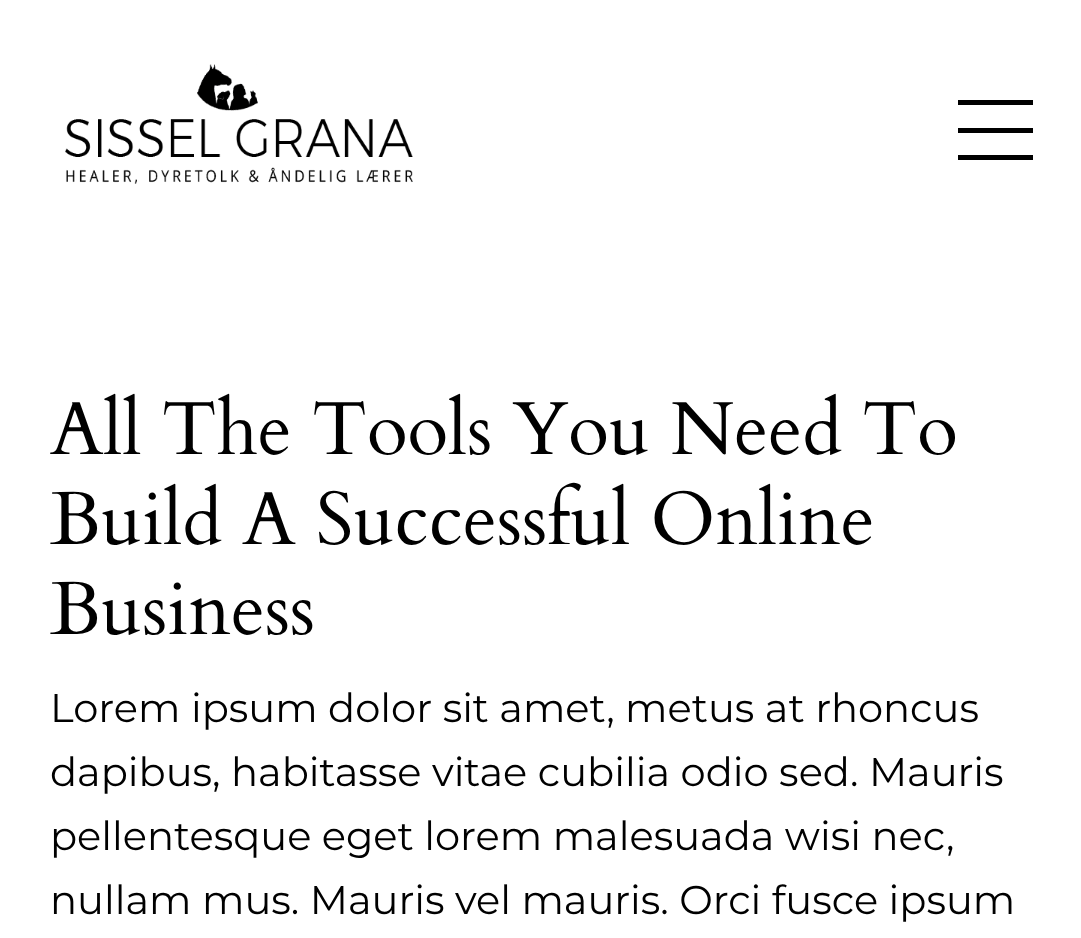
<!DOCTYPE html>
<meta charset="utf-8">
<style>body { margin: 0 } canvas { display: block }</style>
<canvas id="canvas" width="1081" height="938"></canvas>
<img id="img1" src="images/1.png" hidden>
<script>
window.onload = function () {
    const canvas = document.getElementById('canvas');
    const context = canvas.getContext('2d');
    context.miterLimit = 4;
    context.fontKerning = 'normal';

    context.fillStyle = 'rgb(255, 255, 255)';
    context.fillRect(0, 0, 1081, 938);
    context.drawImage(document.getElementById('img1'), 65, 64, 348, 120);
    context.fillStyle = 'rgb(0, 0, 0)';
    context.fillRect(958, 100, 75, 5);
    context.fillRect(958, 128, 75, 5);
    context.fillRect(958, 155, 75, 5);
    context.font = '75px Cardo';
    context.fillText('All The Tools You Need To', 50, 454);
    context.fillText('Build A Successful Online', 50, 544);
    context.fillText('Business', 50, 634);
    context.font = '40px Montserrat';
    context.fillText('Lorem ipsum dolor sit amet, metus at rhoncus', 50, 722);
    context.fillText('dapibus, habitasse vitae cubilia odio sed. Mauris', 50, 786);
    context.fillText('pellentesque eget lorem malesuada wisi nec,', 50, 850);
    context.fillText('nullam mus. Mauris vel mauris. Orci fusce ipsum', 50, 914);
};
</script>
